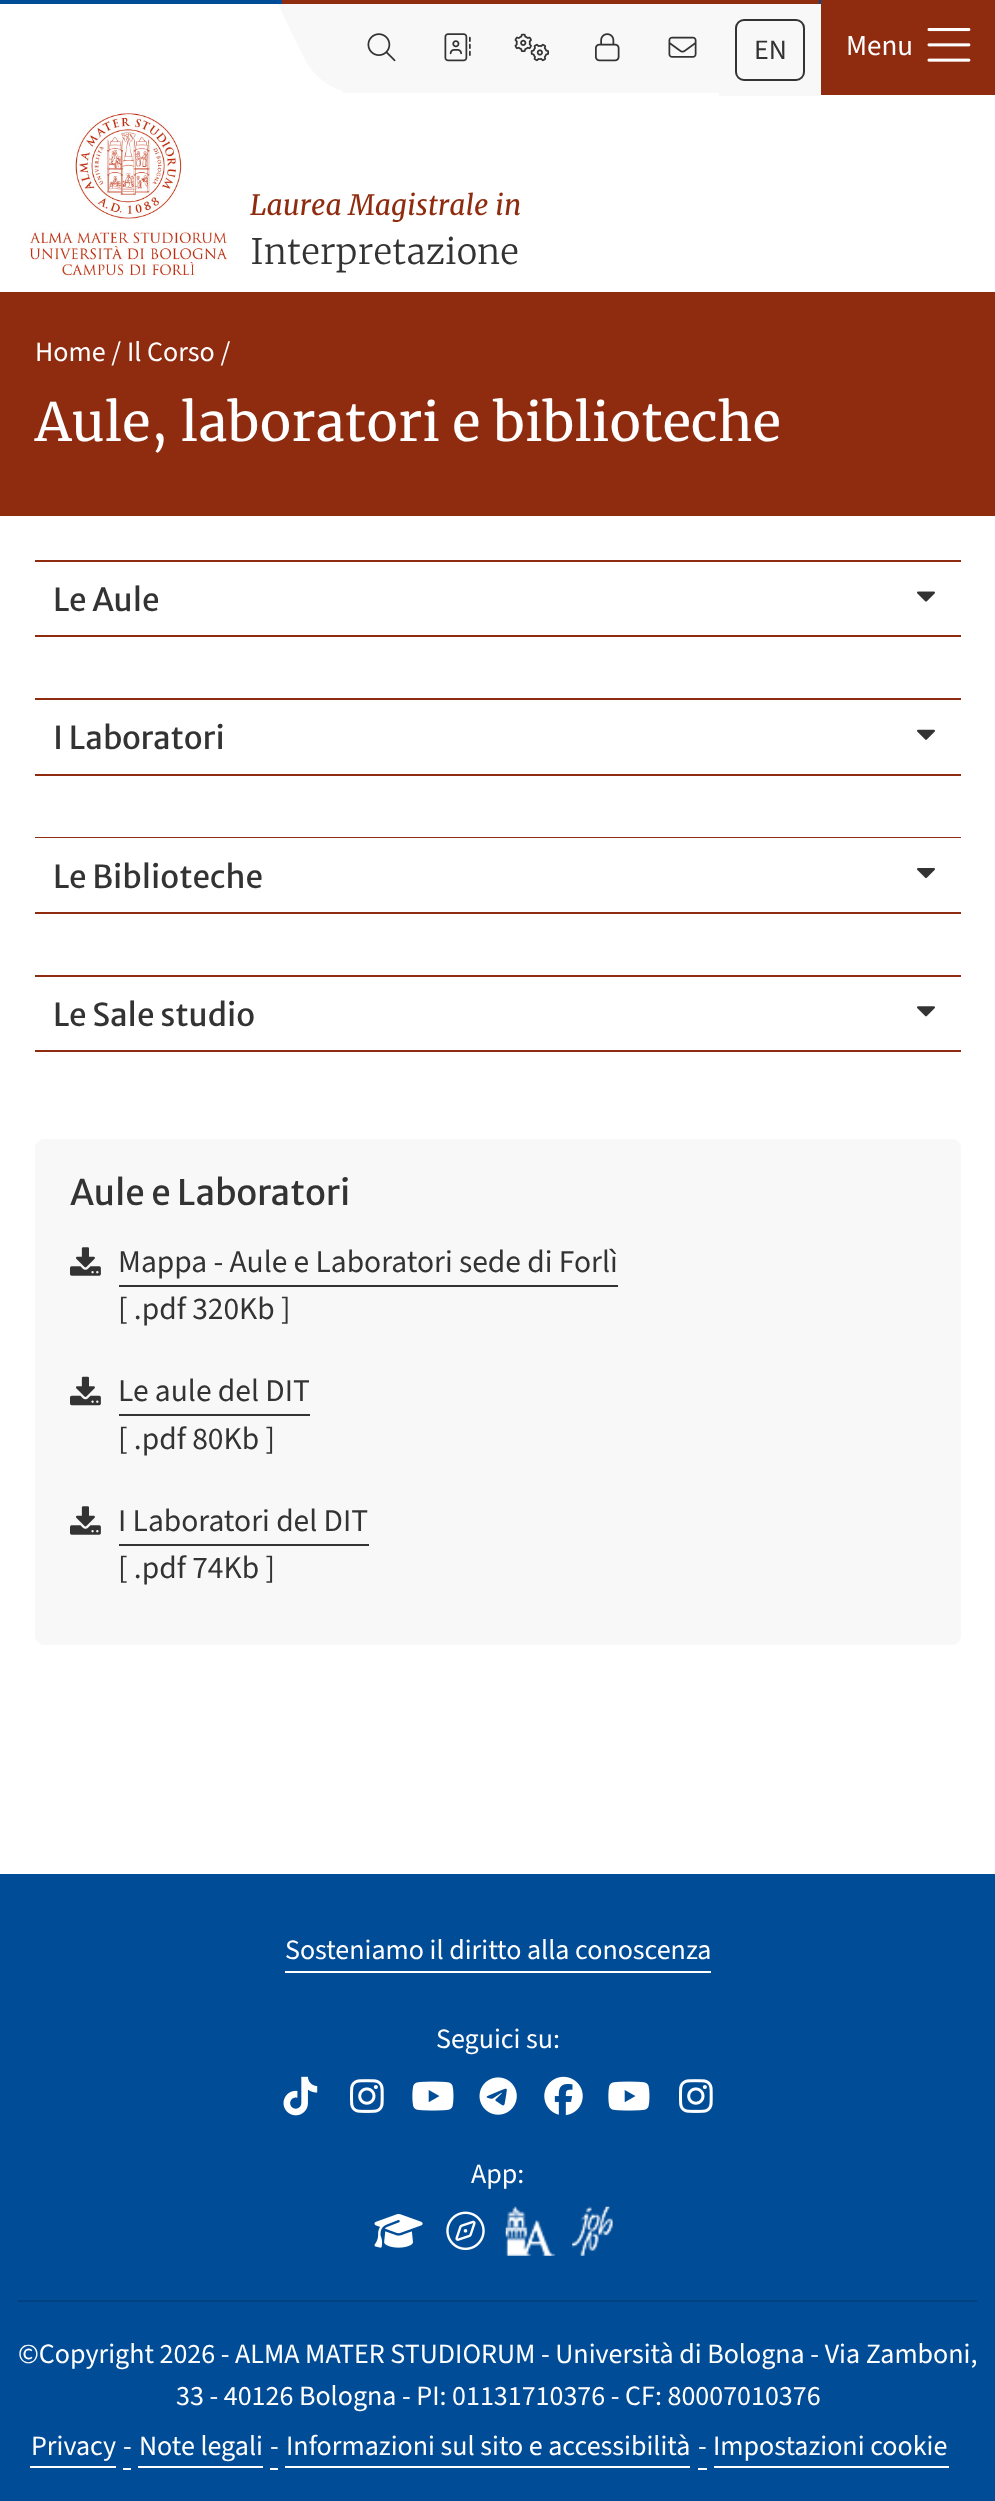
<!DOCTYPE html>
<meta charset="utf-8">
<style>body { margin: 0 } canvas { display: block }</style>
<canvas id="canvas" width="995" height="2501"></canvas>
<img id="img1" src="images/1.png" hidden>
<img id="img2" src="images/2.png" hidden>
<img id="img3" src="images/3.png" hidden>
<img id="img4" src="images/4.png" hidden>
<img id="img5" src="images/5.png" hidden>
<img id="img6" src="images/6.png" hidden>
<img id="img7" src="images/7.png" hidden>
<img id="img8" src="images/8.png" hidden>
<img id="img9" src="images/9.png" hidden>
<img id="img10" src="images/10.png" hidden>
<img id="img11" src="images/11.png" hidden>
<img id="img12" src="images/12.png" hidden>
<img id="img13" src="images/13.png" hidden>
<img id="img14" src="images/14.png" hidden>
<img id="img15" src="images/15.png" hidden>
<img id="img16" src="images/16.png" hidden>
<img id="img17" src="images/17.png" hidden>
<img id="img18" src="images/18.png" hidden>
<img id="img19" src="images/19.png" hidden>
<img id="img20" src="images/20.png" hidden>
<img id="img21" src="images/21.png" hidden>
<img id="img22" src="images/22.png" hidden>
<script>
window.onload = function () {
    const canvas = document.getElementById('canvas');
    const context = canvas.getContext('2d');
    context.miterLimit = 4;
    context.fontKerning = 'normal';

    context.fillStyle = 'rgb(255, 255, 255)';
    context.fillRect(0, 0, 995, 2501);
    context.fillStyle = 'rgb(143, 44, 16)';
    context.fillRect(821, 0, 174, 95);
    context.drawImage(document.getElementById('img1'), 927, 28, 44, 34);
    context.drawImage(document.getElementById('img2'), 29, 110, 199, 167);
    context.fillStyle = 'rgb(0, 76, 151)';
    context.fillRect(0, 0, 821, 4);
    context.fillStyle = 'rgb(143, 44, 16)';
    context.fillRect(282, 0, 537, 4);
    context.fillStyle = 'rgb(248, 248, 248)';
    context.fillRect(343, 4, 376, 89);
    context.beginPath();
    context.moveTo(278, 4);
    context.lineTo(418, 4);
    context.bezierCurveTo(438, 4, 461, 19, 470, 38);
    context.lineTo(495, 93);
    context.lineTo(355, 93);
    context.bezierCurveTo(336, 93, 313, 77, 304, 58);
    context.closePath();
    context.fill();
    context.drawImage(document.getElementById('img3'), 367, 33, 29, 29);
    context.drawImage(document.getElementById('img4'), 444, 33, 27, 29);
    context.drawImage(document.getElementById('img5'), 514, 33, 36, 29);
    context.drawImage(document.getElementById('img6'), 595, 33, 25, 29);
    context.drawImage(document.getElementById('img7'), 668, 36, 29, 22);
    context.fillRect(719, 4, 102, 92);
    context.beginPath();
    context.roundRect(736, 20, 68, 60, 8);
    context.strokeStyle = 'rgb(51, 51, 51)';
    context.lineWidth = 2;
    context.stroke();
    context.fillStyle = 'rgb(143, 44, 16)';
    context.fillRect(0, 292, 995, 224);
    context.fillRect(35, 560, 926, 2);
    context.fillRect(35, 635, 926, 2);
    context.drawImage(document.getElementById('img8'), 917, 591, 18, 11);
    context.fillRect(35, 698, 926, 2);
    context.fillRect(35, 774, 926, 2);
    context.drawImage(document.getElementById('img9'), 917, 729, 18, 11);
    context.fillRect(35, 837, 926, 1);
    context.fillRect(35, 912, 926, 2);
    context.drawImage(document.getElementById('img10'), 917, 868, 18, 11);
    context.fillRect(35, 975, 926, 2);
    context.fillRect(35, 1050, 926, 2);
    context.drawImage(document.getElementById('img11'), 917, 1006, 18, 11);
    context.fillStyle = 'rgb(248, 248, 248)';
    context.beginPath();
    context.roundRect(35, 1139, 926, 506, 9);
    context.fill();
    context.drawImage(document.getElementById('img12'), 70, 1247, 31, 29);
    context.fillStyle = 'rgb(51, 51, 51)';
    context.fillRect(119, 1285, 499, 2);
    context.drawImage(document.getElementById('img13'), 70, 1376, 31, 30);
    context.fillRect(119, 1414, 191, 2);
    context.drawImage(document.getElementById('img12'), 70, 1506, 31, 29);
    context.fillRect(119, 1544, 250, 2);
    context.fillStyle = 'rgb(0, 76, 151)';
    context.fillRect(0, 1874, 995, 627);
    context.fillStyle = 'rgb(255, 255, 255)';
    context.fillRect(285, 1971, 426, 2);
    context.drawImage(document.getElementById('img14'), 283, 2076, 35, 40);
    context.drawImage(document.getElementById('img15'), 350, 2079, 34, 34);
    context.drawImage(document.getElementById('img16'), 412, 2081, 42, 30);
    context.drawImage(document.getElementById('img17'), 479, 2077, 38, 38);
    context.drawImage(document.getElementById('img18'), 544, 2076, 39, 40);
    context.drawImage(document.getElementById('img16'), 608, 2081, 42, 30);
    context.drawImage(document.getElementById('img15'), 679, 2079, 34, 34);
    context.drawImage(document.getElementById('img19'), 374, 2214, 49, 34);
    context.drawImage(document.getElementById('img20'), 446, 2211, 39, 40);
    context.drawImage(document.getElementById('img21'), 505, 2206, 50, 50);
    context.drawImage(document.getElementById('img22'), 572, 2206, 41, 50);
    context.fillStyle = 'rgb(0, 65, 129)';
    context.fillRect(18, 2300, 960, 2);
    context.fillStyle = 'rgb(255, 255, 255)';
    context.fillRect(30, 2466, 86, 2);
    context.fillRect(123, 2468, 8, 2);
    context.fillRect(138, 2466, 125, 2);
    context.fillRect(270, 2468, 8, 2);
    context.fillRect(285, 2466, 405, 2);
    context.fillRect(698, 2468, 9, 2);
    context.fillRect(714, 2466, 235, 2);
    context.font = '29px "Source Sans 3"';
    context.fillText('Menu', 846, 55);
    context.font = 'italic 28px Merriweather';
    context.fillStyle = 'rgb(143, 44, 16)';
    context.fillText('Laurea Magistrale in', 250, 215);
    context.font = '300 35px Merriweather';
    context.fillStyle = 'rgb(51, 51, 51)';
    context.fillText('Interpretazione', 250, 264);
    context.font = '28px "Source Sans 3"';
    context.fillText('EN', 754, 59);
    context.fillStyle = 'rgb(255, 255, 255)';
    context.fillText('Home /', 35, 361);
    context.fillText('Il Corso /', 127, 361);
    context.font = '52.5px Merriweather';
    context.fillText('Aule, laboratori e biblioteche', 35, 441);
    context.font = '31.5px Merriweather Sans';
    context.fillStyle = 'rgb(51, 51, 51)';
    context.fillText('Le Aule', 53, 611);
    context.fillText('I Laboratori', 53, 749);
    context.fillText('Le Biblioteche', 53, 888);
    context.fillText('Le Sale studio', 53, 1026);
    context.font = '35px Merriweather Sans';
    context.fillText('Aule e Laboratori', 70, 1205);
    context.font = '31.5px "Source Sans 3"';
    context.fillText('Mappa - Aule e Laboratori sede di Forlì', 118, 1272);
    context.fillText('[ .pdf 320Kb ]', 118, 1319);
    context.fillText('Le aule del DIT', 118, 1401);
    context.fillText('[ .pdf 80Kb ]', 118, 1449);
    context.fillText('I Laboratori del DIT', 118, 1531);
    context.fillText('[ .pdf 74Kb ]', 118, 1578);
    context.font = '28px "Source Sans 3"';
    context.fillStyle = 'rgb(255, 255, 255)';
    context.fillText('Sosteniamo il diritto alla conoscenza', 285, 1959);
    context.fillText('Seguici su:', 436, 2048);
    context.fillText('App:', 471, 2183);
    context.fillText('©Copyright 2026 - ALMA MATER STUDIORUM - Università di Bologna - Via Zamboni,', 18, 2363);
    context.fillText('33 - 40126 Bologna - PI: 01131710376 - CF: 80007010376', 176, 2405);
    context.fillText('Privacy', 31, 2455);
    context.fillText('-', 123, 2455);
    context.fillText('Note legali', 139, 2455);
    context.fillText('-', 270, 2455);
    context.fillText('Informazioni sul sito e accessibilità', 286, 2455);
    context.fillText('-', 698, 2455);
    context.fillText('Impostazioni cookie', 713, 2455);
};
</script>
